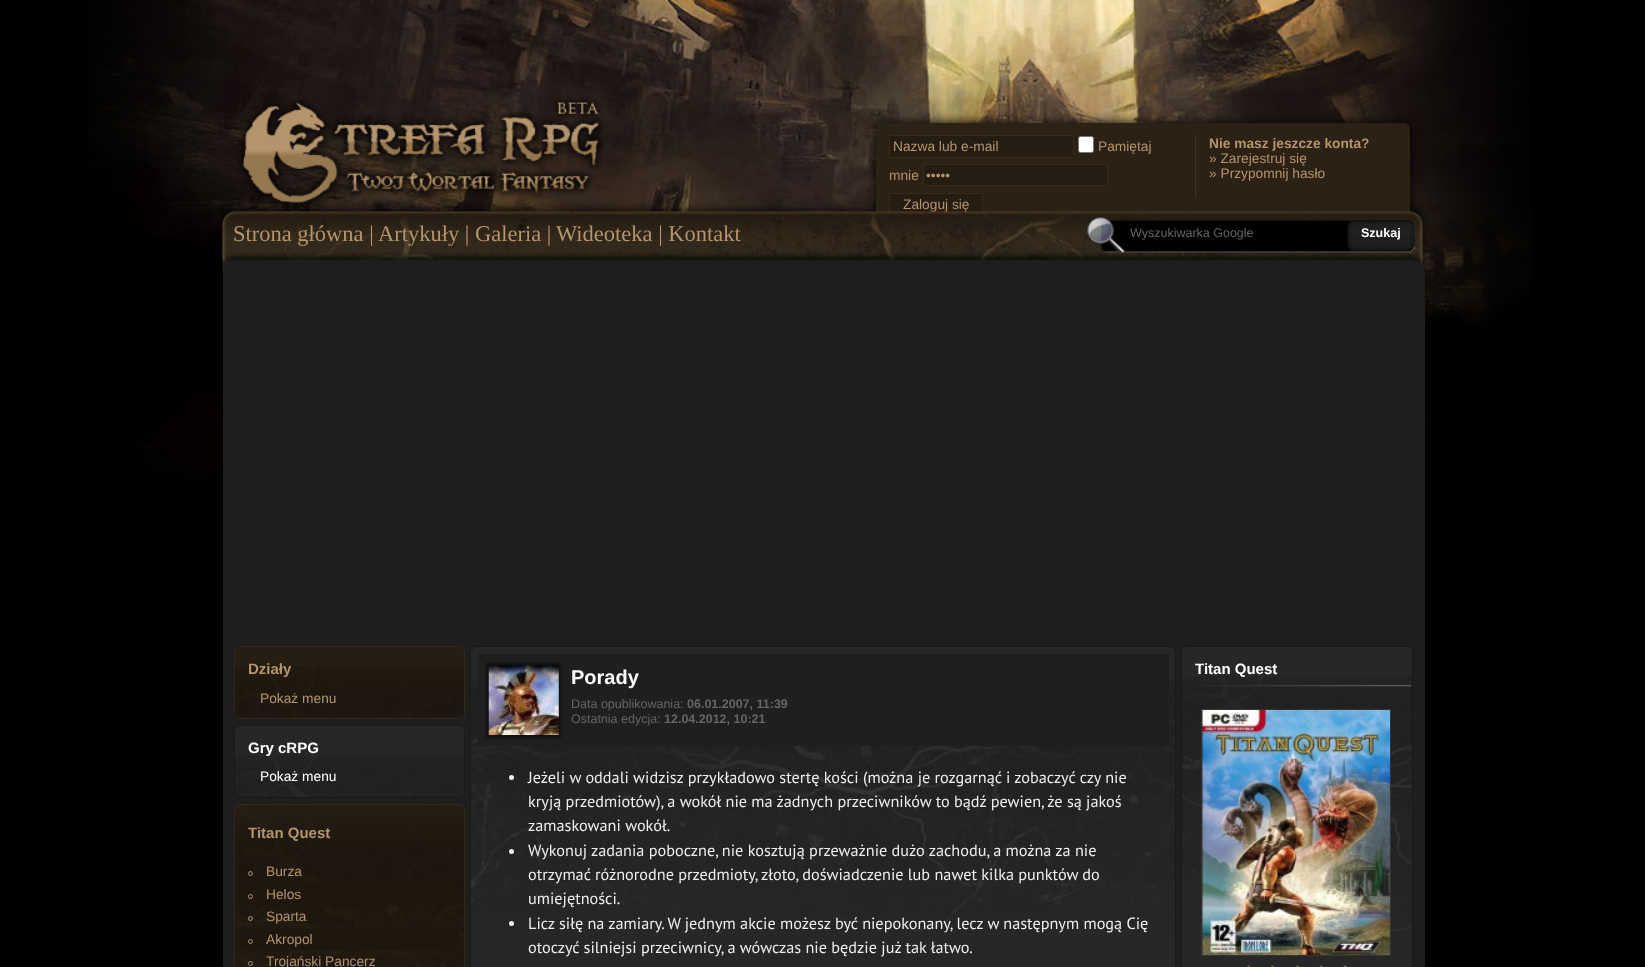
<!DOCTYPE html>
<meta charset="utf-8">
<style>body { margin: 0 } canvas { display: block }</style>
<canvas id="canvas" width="1645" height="967"></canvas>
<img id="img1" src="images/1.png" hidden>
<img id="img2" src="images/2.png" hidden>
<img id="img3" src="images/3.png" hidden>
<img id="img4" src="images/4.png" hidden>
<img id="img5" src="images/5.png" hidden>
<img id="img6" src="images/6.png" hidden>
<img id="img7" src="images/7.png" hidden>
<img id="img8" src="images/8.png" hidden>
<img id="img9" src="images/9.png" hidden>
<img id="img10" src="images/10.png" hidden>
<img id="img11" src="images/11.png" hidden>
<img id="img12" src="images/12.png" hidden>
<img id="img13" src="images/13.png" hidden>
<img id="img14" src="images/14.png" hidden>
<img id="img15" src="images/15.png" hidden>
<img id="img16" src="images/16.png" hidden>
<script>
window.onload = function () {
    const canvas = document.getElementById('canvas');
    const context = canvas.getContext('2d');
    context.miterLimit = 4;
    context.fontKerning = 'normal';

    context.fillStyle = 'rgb(0, 0, 0)';
    context.fillRect(0, 0, 1645, 967);
    context.drawImage(document.getElementById('img1'), 88, 0, 1444, 499);
    context.filter = 'blur(6px)';
    context.beginPath();
    context.roundRect(223, 211, 1200, 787, 13);
    context.fill();
    context.filter = 'none';
    context.drawImage(document.getElementById('img2'), 238, 99, 365, 109);
    context.filter = 'blur(6px)';
    context.beginPath();
    context.roundRect(876, 123, 534, 100, 6);
    context.fill();
    context.filter = 'none';
    context.fillStyle = 'rgb(43, 33, 21)';
    context.beginPath();
    context.roundRect(876, 123, 534, 100, [6, 6, 0, 0]);
    context.fill();
    context.fillStyle = 'rgb(37, 28, 18)';
    context.beginPath();
    context.rect(889.5, 135.5, 184, 22);
    context.fill();
    context.strokeStyle = 'rgb(56, 43, 27)';
    context.stroke();
    context.fillStyle = 'rgb(255, 255, 255)';
    context.beginPath();
    context.roundRect(1078.5, 136.5, 15, 16, 2);
    context.fill();
    context.strokeStyle = 'rgb(118, 118, 118)';
    context.stroke();
    context.fillStyle = 'rgb(37, 28, 18)';
    context.beginPath();
    context.rect(923.5, 164.5, 184, 21);
    context.fill();
    context.strokeStyle = 'rgb(56, 43, 27)';
    context.stroke();
    context.fillRect(890, 194, 92, 18);
    context.strokeRect(889.5, 193.5, 93, 21);
    context.fillStyle = 'rgb(62, 51, 37)';
    context.fillRect(1195, 135, 1, 63);
    context.font = '13.75px Liberation Sans';
    context.fillStyle = 'rgb(180, 148, 107)';
    context.fillText('Nazwa lub e-mail', 893, 151);
    context.fillText('Pamiętaj', 1098, 151);
    context.fillText('mnie', 889, 180);
    context.fillText('•••••', 926, 180);
    context.fillText('Zaloguj się', 903, 209);
    context.font = 'bold 13.75px Liberation Sans';
    context.fillText('Nie masz jeszcze konta?', 1209, 148);
    context.font = '13.75px Liberation Sans';
    context.fillText('» Zarejestruj się', 1209, 163);
    context.fillText('» Przypomnij hasło', 1209, 178);
    context.drawImage(document.getElementById('img3'), 222, 211, 1201, 61);
    context.font = '22.5px Liberation Serif';
    context.fillText('Strona główna |', 233, 241);
    context.fillText('Artykuły | Galeria |', 378, 241);
    context.fillText('Wideoteka | Kontakt', 556, 241);
    context.drawImage(document.getElementById('img4'), 1086, 216, 329, 39);
    context.font = '12.5px Liberation Sans';
    context.fillStyle = 'rgb(102, 102, 102)';
    context.fillText('Wyszukiwarka Google', 1130, 237);
    context.font = 'bold 12.5px Liberation Sans';
    context.fillStyle = 'rgb(255, 255, 255)';
    context.fillText('Szukaj', 1361, 237);
    context.fillStyle = 'rgb(30, 30, 30)';
    context.beginPath();
    context.roundRect(223, 260, 1202, 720, 13);
    context.fill();
    context.fillStyle = 'rgb(38, 30, 19)';
    context.beginPath();
    context.roundRect(234, 646, 231, 73, 6);
    context.fill();
    context.drawImage(document.getElementById('img5'), 234, 666, 231, 53);
    context.beginPath();
    context.roundRect(234.5, 646.5, 230, 72, 5.5);
    context.strokeStyle = 'rgb(50, 40, 25)';
    context.stroke();
    context.font = 'bold 15px Liberation Sans';
    context.fillStyle = 'rgb(180, 148, 107)';
    context.fillText('Działy', 248, 674);
    context.font = '13.75px Liberation Sans';
    context.fillText('Pokaż menu', 260, 703);
    context.fillStyle = 'rgb(39, 39, 39)';
    context.beginPath();
    context.roundRect(234, 725, 231, 73, 6);
    context.fill();
    context.drawImage(document.getElementById('img6'), 234, 755, 231, 42);
    context.beginPath();
    context.roundRect(234.5, 725.5, 230, 72, 5.5);
    context.strokeStyle = 'rgb(24, 25, 25)';
    context.stroke();
    context.font = 'bold 15px Liberation Sans';
    context.fillStyle = 'rgb(255, 255, 255)';
    context.fillText('Gry cRPG', 248, 753);
    context.font = '13.75px Liberation Sans';
    context.fillText('Pokaż menu', 260, 781);
    context.drawImage(document.getElementById('img7'), 234, 805, 231, 162);
    context.beginPath();
    context.roundRect(234.5, 804.5, 230, 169, 5.5);
    context.strokeStyle = 'rgb(50, 40, 25)';
    context.stroke();
    context.font = 'bold 15px Liberation Sans';
    context.fillStyle = 'rgb(180, 148, 107)';
    context.fillText('Titan Quest', 248, 838);
    context.beginPath();
    context.arc(250.5, 873.5, 2, 0, 2 * Math.PI);
    context.strokeStyle = 'rgb(180, 148, 107)';
    context.stroke();
    context.font = '13.75px Liberation Sans';
    context.fillText('Burza', 266, 876);
    context.fillStyle = 'rgb(29, 23, 14)';
    context.fillRect(245, 883, 213, 22);
    context.beginPath();
    context.arc(250.5, 896.5, 2, 0, 2 * Math.PI);
    context.stroke();
    context.fillStyle = 'rgb(180, 148, 107)';
    context.fillText('Helos', 266, 899);
    context.beginPath();
    context.arc(250.5, 918.5, 2, 0, 2 * Math.PI);
    context.stroke();
    context.fillText('Sparta', 266, 921);
    context.fillStyle = 'rgb(29, 23, 14)';
    context.fillRect(241, 928, 217, 22);
    context.beginPath();
    context.arc(250.5, 941.5, 2, 0, 2 * Math.PI);
    context.stroke();
    context.fillStyle = 'rgb(180, 148, 107)';
    context.fillText('Akropol', 266, 944);
    context.beginPath();
    context.arc(250.5, 963.5, 2, 0, 2 * Math.PI);
    context.stroke();
    context.fillText('Trojański Pancerz', 266, 966);
    context.fillStyle = 'rgb(39, 39, 39)';
    context.beginPath();
    context.roundRect(470, 646, 706, 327, 6);
    context.fill();
    context.drawImage(document.getElementById('img8'), 471, 680, 704, 251);
    context.beginPath();
    context.roundRect(470.5, 646.5, 705, 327, 5.5);
    context.strokeStyle = 'rgb(24, 25, 25)';
    context.stroke();
    context.fillStyle = 'rgb(31, 31, 31)';
    context.fillRect(478, 654, 691, 92);
    context.fillStyle = 'rgb(17, 17, 17)';
    context.filter = 'blur(1px)';
    context.beginPath();
    context.rect(486, 663, 75, 75);
    context.fill();
    context.filter = 'none';
    context.drawImage(document.getElementById('img9'), 488, 665, 71, 70);
    context.font = 'bold 20px Liberation Sans';
    context.fillStyle = 'rgb(255, 255, 255)';
    context.fillText('Porady', 571, 684);
    context.font = '12.5px Liberation Sans';
    context.fillStyle = 'rgb(102, 102, 102)';
    context.fillText('Data opublikowania:', 571, 708);
    context.font = 'bold 12.5px Liberation Sans';
    context.fillText('06.01.2007, 11:39', 687, 708);
    context.font = '12.5px Liberation Sans';
    context.fillText('Ostatnia edycja:', 571, 723);
    context.font = 'bold 12.5px Liberation Sans';
    context.fillText('12.04.2012, 10:21', 664, 723);
    context.fillStyle = 'rgb(238, 238, 238)';
    context.beginPath();
    context.arc(511.5, 777.5, 2.5, 0, 2 * Math.PI);
    context.fill();
    context.font = '16.25px PT Sans';
    context.fillText('Jeżeli w oddali widzisz przykładowo stertę kości (można je rozgarnąć i zobaczyć czy nie', 528, 783);
    context.fillText('kryją przedmiotów), a wokół nie ma żadnych przeciwników to bądź pewien, że są jakoś', 528, 807);
    context.fillText('zamaskowani wokół.', 528, 831);
    context.beginPath();
    context.arc(511.5, 851.5, 2.5, 0, 2 * Math.PI);
    context.fill();
    context.fillText('Wykonuj zadania poboczne, nie kosztują przeważnie dużo zachodu, a można za nie', 528, 856);
    context.fillText('otrzymać różnorodne przedmioty, złoto, doświadczenie lub nawet kilka punktów do', 528, 880);
    context.fillText('umiejętności.', 528, 904);
    context.beginPath();
    context.arc(511.5, 923.5, 2.5, 0, 2 * Math.PI);
    context.fill();
    context.fillText('Licz siłę na zamiary. W jednym akcie możesz być niepokonany, lecz w następnym mogą Cię', 528, 929);
    context.fillText('otoczyć silniejsi przeciwnicy, a wówczas nie będzie już tak łatwo.', 528, 953);
    context.fillStyle = 'rgb(39, 39, 39)';
    context.beginPath();
    context.roundRect(1181, 646, 232, 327, 6);
    context.fill();
    context.drawImage(document.getElementById('img10'), 1182, 676, 230, 255);
    context.beginPath();
    context.roundRect(1181.5, 646.5, 231, 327, 5.5);
    context.stroke();
    context.drawImage(document.getElementById('img11'), 1196, 684, 216, 3);
    context.font = 'bold 15px Liberation Sans';
    context.fillStyle = 'rgb(255, 255, 255)';
    context.fillText('Titan Quest', 1195, 674);
    context.strokeStyle = 'rgb(51, 51, 51)';
    context.strokeRect(1201.5, 709.5, 189, 246);
    context.drawImage(document.getElementById('img12'), 1202, 710, 188, 245);
    context.drawImage(document.getElementById('img13'), 1247, 965, 4, 2);
    context.drawImage(document.getElementById('img14'), 1271, 965, 3, 2);
    context.drawImage(document.getElementById('img14'), 1296, 965, 3, 2);
    context.drawImage(document.getElementById('img15'), 1319, 965, 4, 2);
    context.drawImage(document.getElementById('img16'), 1343, 965, 4, 2);
};
</script>
